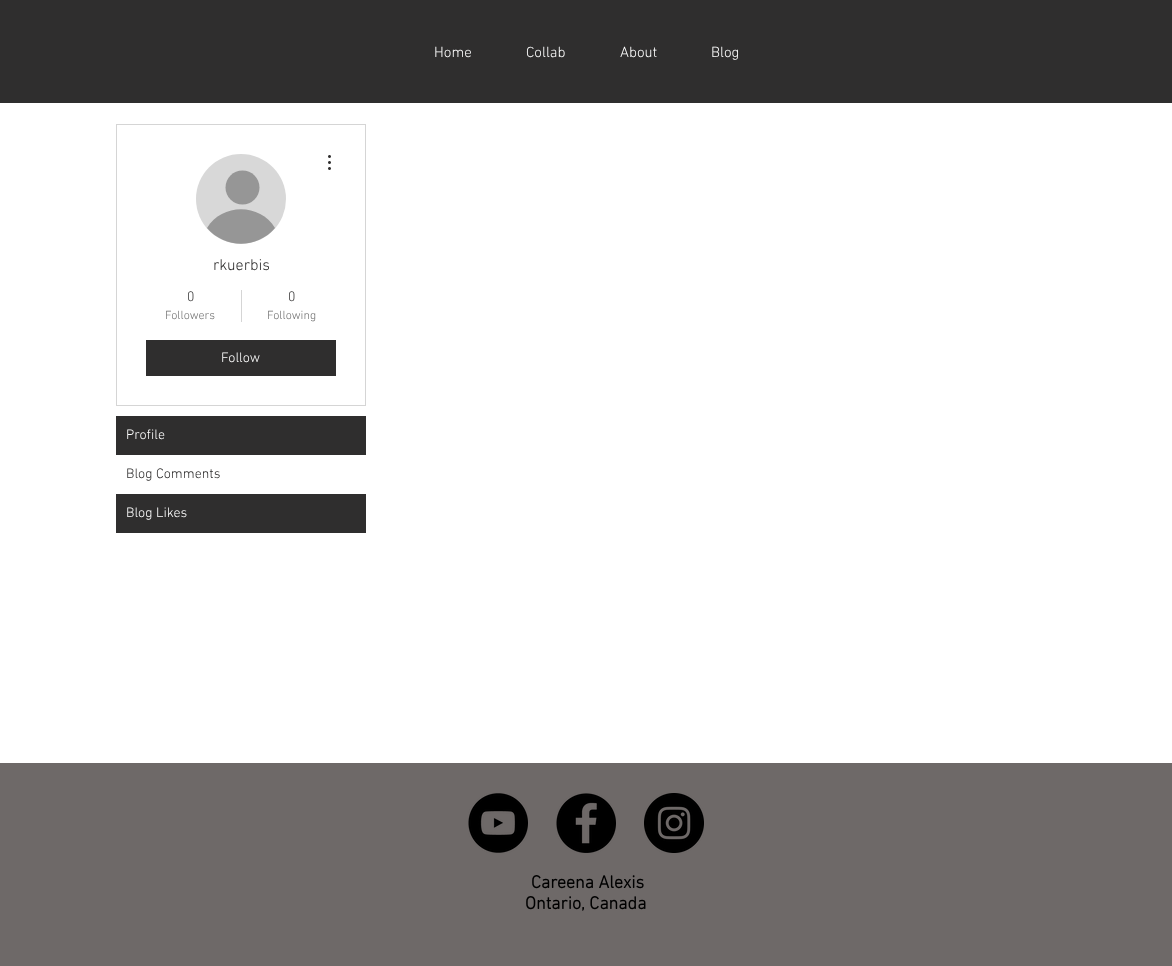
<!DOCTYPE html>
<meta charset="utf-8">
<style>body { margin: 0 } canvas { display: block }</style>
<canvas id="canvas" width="1172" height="966"></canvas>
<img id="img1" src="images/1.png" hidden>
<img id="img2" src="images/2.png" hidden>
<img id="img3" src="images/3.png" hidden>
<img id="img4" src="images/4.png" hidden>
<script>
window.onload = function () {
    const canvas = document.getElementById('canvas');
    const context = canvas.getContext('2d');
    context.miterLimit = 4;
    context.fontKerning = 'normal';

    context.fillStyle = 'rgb(255, 255, 255)';
    context.fillRect(0, 0, 1172, 966);
    context.fillStyle = 'rgb(47, 46, 46)';
    context.fillRect(0, 0, 1172, 103);
    context.strokeStyle = 'rgb(213, 213, 213)';
    context.strokeRect(116.5, 124.5, 249, 281);
    context.fillStyle = 'rgb(216, 216, 216)';
    context.beginPath();
    context.arc(241, 199, 45, 0, 2 * Math.PI);
    context.fill();
    context.fillStyle = 'rgb(150, 150, 150)';
    context.beginPath();
    context.arc(242.5, 187.5, 17, 0, 2 * Math.PI);
    context.fill();
    context.beginPath();
    context.moveTo(275, 228);
    context.bezierCurveTo(257, 249, 225, 249, 207, 228);
    context.bezierCurveTo(222, 203, 260, 203, 275, 228);
    context.closePath();
    context.fill();
    context.drawImage(document.getElementById('img1'), 328, 155, 3, 15);
    context.fillStyle = 'rgb(213, 213, 213)';
    context.fillRect(241, 290, 1, 32);
    context.fillStyle = 'rgb(47, 46, 46)';
    context.fillRect(146, 340, 190, 36);
    context.fillRect(116, 416, 250, 39);
    context.fillRect(116, 494, 250, 39);
    context.fillStyle = 'rgb(110, 105, 104)';
    context.fillRect(0, 763, 1172, 203);
    context.drawImage(document.getElementById('img2'), 468, 793, 60, 60);
    context.drawImage(document.getElementById('img3'), 556, 793, 60, 60);
    context.drawImage(document.getElementById('img4'), 644, 793, 60, 60);
    context.font = '300 15px "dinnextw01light"';
    context.fillStyle = 'rgb(255, 255, 255)';
    context.fillText('Home', 434, 57);
    context.fillText('Collab', 526, 57);
    context.fillText('About', 620, 57);
    context.fillText('Blog', 711, 57);
    context.font = '300 16px "dinnextw01light"';
    context.fillStyle = 'rgb(47, 46, 46)';
    context.fillText('rkuerbis', 213, 270);
    context.font = '300 14px "dinnextw01light"';
    context.fillText('0', 187, 301);
    context.font = '300 12px "dinnextw01light"';
    context.fillStyle = 'rgb(109, 109, 109)';
    context.fillText('Followers', 165, 319);
    context.font = '300 14px "dinnextw01light"';
    context.fillStyle = 'rgb(47, 46, 46)';
    context.fillText('0', 288, 301);
    context.font = '300 12px "dinnextw01light"';
    context.fillStyle = 'rgb(109, 109, 109)';
    context.fillText('Following', 267, 319);
    context.font = '300 14px "dinnextw01light"';
    context.fillStyle = 'rgb(255, 255, 255)';
    context.fillText('Follow', 221, 362);
    context.fillText('Profile', 126, 439);
    context.fillStyle = 'rgb(47, 46, 46)';
    context.fillText('Blog Comments', 126, 478);
    context.fillStyle = 'rgb(255, 255, 255)';
    context.fillText('Blog Likes', 126, 517);
    context.font = 'bold 18px "dinnextw01light"';
    context.fillStyle = 'rgb(0, 0, 0)';
    context.fillText('Careena Alexis', 531, 888);
    context.fillText('Ontario, Canada', 525, 909);
};
</script>
